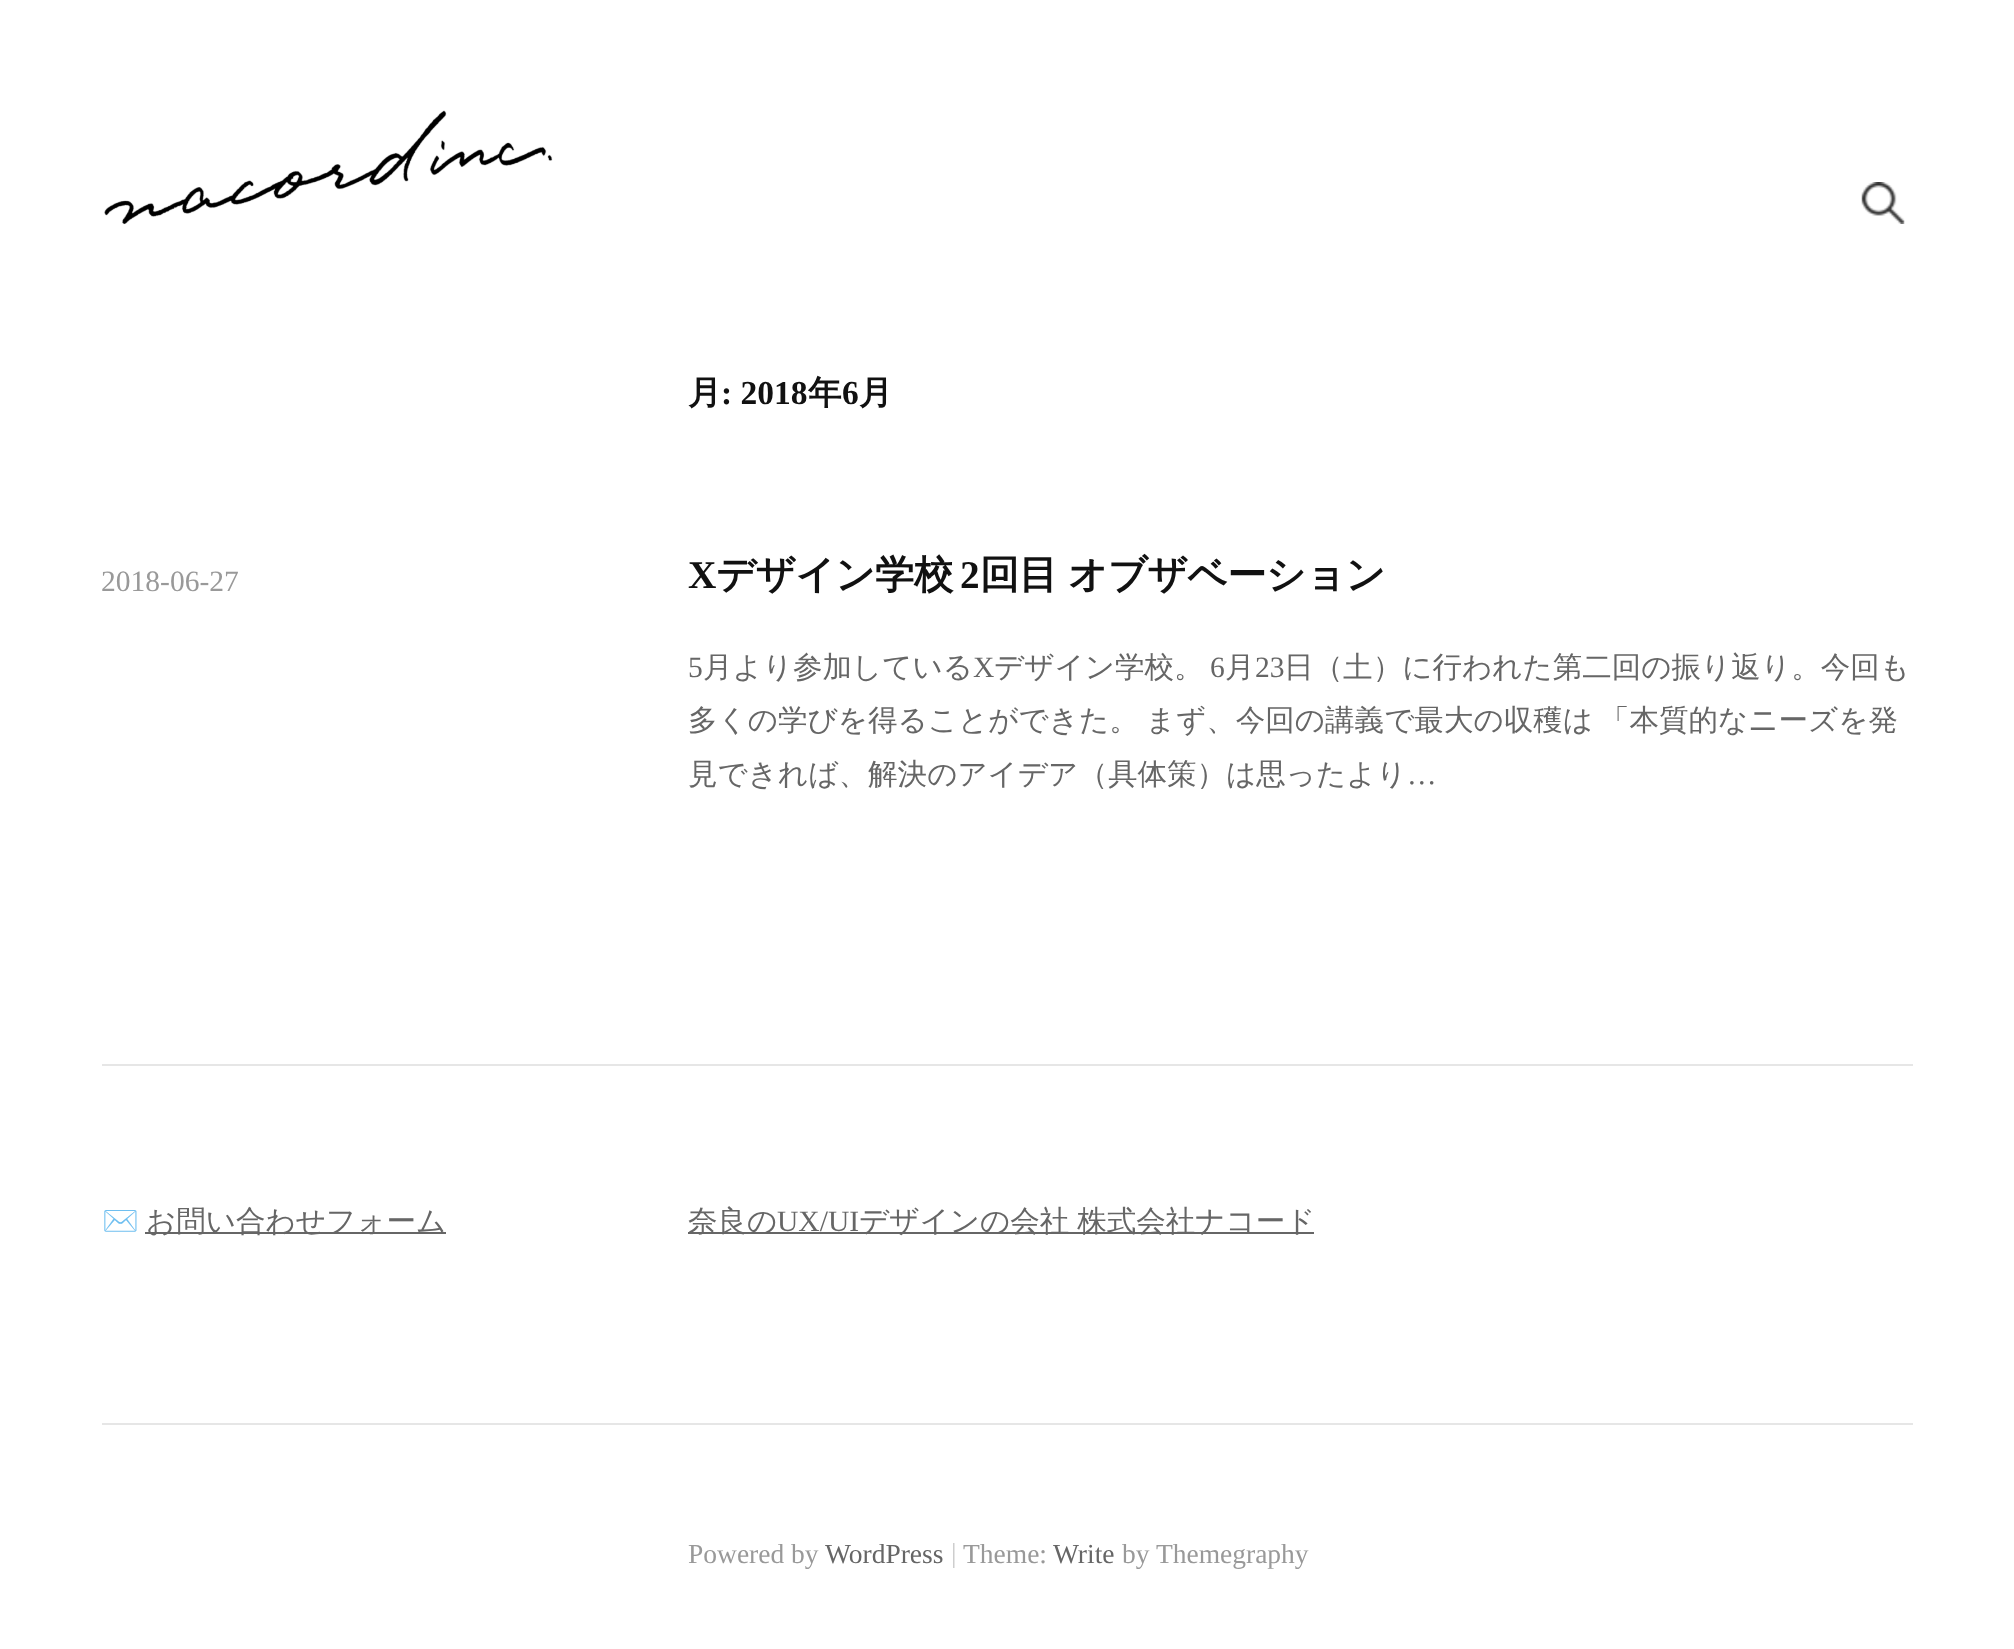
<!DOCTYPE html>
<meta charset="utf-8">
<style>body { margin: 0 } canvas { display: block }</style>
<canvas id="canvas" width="2014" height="1649"></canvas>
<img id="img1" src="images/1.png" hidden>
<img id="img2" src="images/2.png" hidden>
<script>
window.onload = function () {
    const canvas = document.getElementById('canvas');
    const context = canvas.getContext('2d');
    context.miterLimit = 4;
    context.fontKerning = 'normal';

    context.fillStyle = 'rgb(255, 255, 255)';
    context.fillRect(0, 0, 2014, 1649);
    context.drawImage(document.getElementById('img1'), 104, 110, 449, 115);
    context.drawImage(document.getElementById('img2'), 1861, 182, 44, 42);
    context.fillStyle = 'rgb(230, 230, 230)';
    context.fillRect(102, 1064, 1811, 2);
    context.fillStyle = 'rgb(102, 102, 102)';
    context.fillRect(145, 1232, 301, 2);
    context.fillRect(688, 1232, 626, 2);
    context.fillStyle = 'rgb(230, 230, 230)';
    context.fillRect(102, 1423, 1811, 2);
    context.font = 'bold 33.5px WenQuanYi Zen Hei';
    context.fillStyle = 'rgb(17, 17, 17)';
    context.fillText('月', 688, 404);
    context.font = 'bold 33.5px Liberation Serif';
    context.fillText(': 2018', 721, 404);
    context.font = 'bold 33.5px WenQuanYi Zen Hei';
    context.fillText('年', 808, 404);
    context.font = 'bold 33.5px Liberation Serif';
    context.fillText('6', 842, 404);
    context.font = 'bold 33.5px WenQuanYi Zen Hei';
    context.fillText('月', 859, 404);
    context.font = '29.55px Liberation Serif';
    context.fillStyle = 'rgb(153, 153, 153)';
    context.fillText('2018-06-27', 101, 591);
    context.letterSpacing = '-0.4px';
    context.font = 'bold 39.25px Liberation Serif';
    context.fillStyle = 'rgb(17, 17, 17)';
    context.fillText('X', 688, 588);
    context.font = 'bold 39.25px WenQuanYi Zen Hei';
    context.fillText('デザイン学校', 716, 588);
    context.font = 'bold 39.25px Liberation Serif';
    context.fillText('2', 960, 588);
    context.wordSpacing = '-1px';
    context.font = 'bold 39.25px WenQuanYi Zen Hei';
    context.fillText('回目 オブザベーション', 980, 588);
    context.letterSpacing = '0px';
    context.wordSpacing = '0px';
    context.font = '29.55px Liberation Serif';
    context.fillStyle = 'rgb(102, 102, 102)';
    context.fillText('5', 688, 677);
    context.font = '500 29.55px WenQuanYi Zen Hei';
    context.fillText('月より参加している', 703, 677);
    context.font = '29.55px Liberation Serif';
    context.fillText('X', 973, 677);
    context.font = '500 29.55px WenQuanYi Zen Hei';
    context.fillText('デザイン学校。', 994, 677);
    context.font = '29.55px Liberation Serif';
    context.fillText('6', 1210, 677);
    context.font = '500 29.55px WenQuanYi Zen Hei';
    context.fillText('月', 1225, 677);
    context.font = '29.55px Liberation Serif';
    context.fillText('23', 1255, 677);
    context.font = '500 29.55px WenQuanYi Zen Hei';
    context.fillText('日（土）に行われた第二回の振り返り。今回も', 1284, 677);
    context.wordSpacing = '-2px';
    context.fillText('多くの学びを得ることができた。 まず、今回の講義で最大の収穫は 「本質的なニーズを発', 688, 730);
    context.wordSpacing = '0px';
    context.fillText('見できれば、解決のアイデア（具体策）は思ったより', 688, 784);
    context.font = '29.55px Liberation Serif';
    context.fillText('…', 1407, 784);
    context.font = '29.55px Noto Color Emoji';
    context.fillText('✉️', 102, 1231);
    context.font = '500 29.55px WenQuanYi Zen Hei';
    context.fillText('お問い合わせフォーム', 146, 1231);
    context.fillText('奈良の', 688, 1231);
    context.font = '29.55px Liberation Serif';
    context.fillText('UX/UI', 777, 1231);
    context.wordSpacing = '-1px';
    context.font = '500 29.55px WenQuanYi Zen Hei';
    context.fillText('デザインの会社 株式会社ナコード', 859, 1231);
    context.wordSpacing = '0px';
    context.font = '27.5px Liberation Serif';
    context.fillStyle = 'rgb(153, 153, 153)';
    context.fillText('Powered by', 688, 1563);
    context.fillStyle = 'rgb(102, 102, 102)';
    context.fillText('WordPress', 825, 1563);
    context.fillStyle = 'rgb(204, 204, 204)';
    context.fillText('|', 951, 1562);
    context.fillStyle = 'rgb(153, 153, 153)';
    context.fillText('Theme:', 963, 1563);
    context.fillStyle = 'rgb(102, 102, 102)';
    context.fillText('Write', 1053, 1563);
    context.fillStyle = 'rgb(153, 153, 153)';
    context.fillText('by Themegraphy', 1122, 1563);
};
</script>
